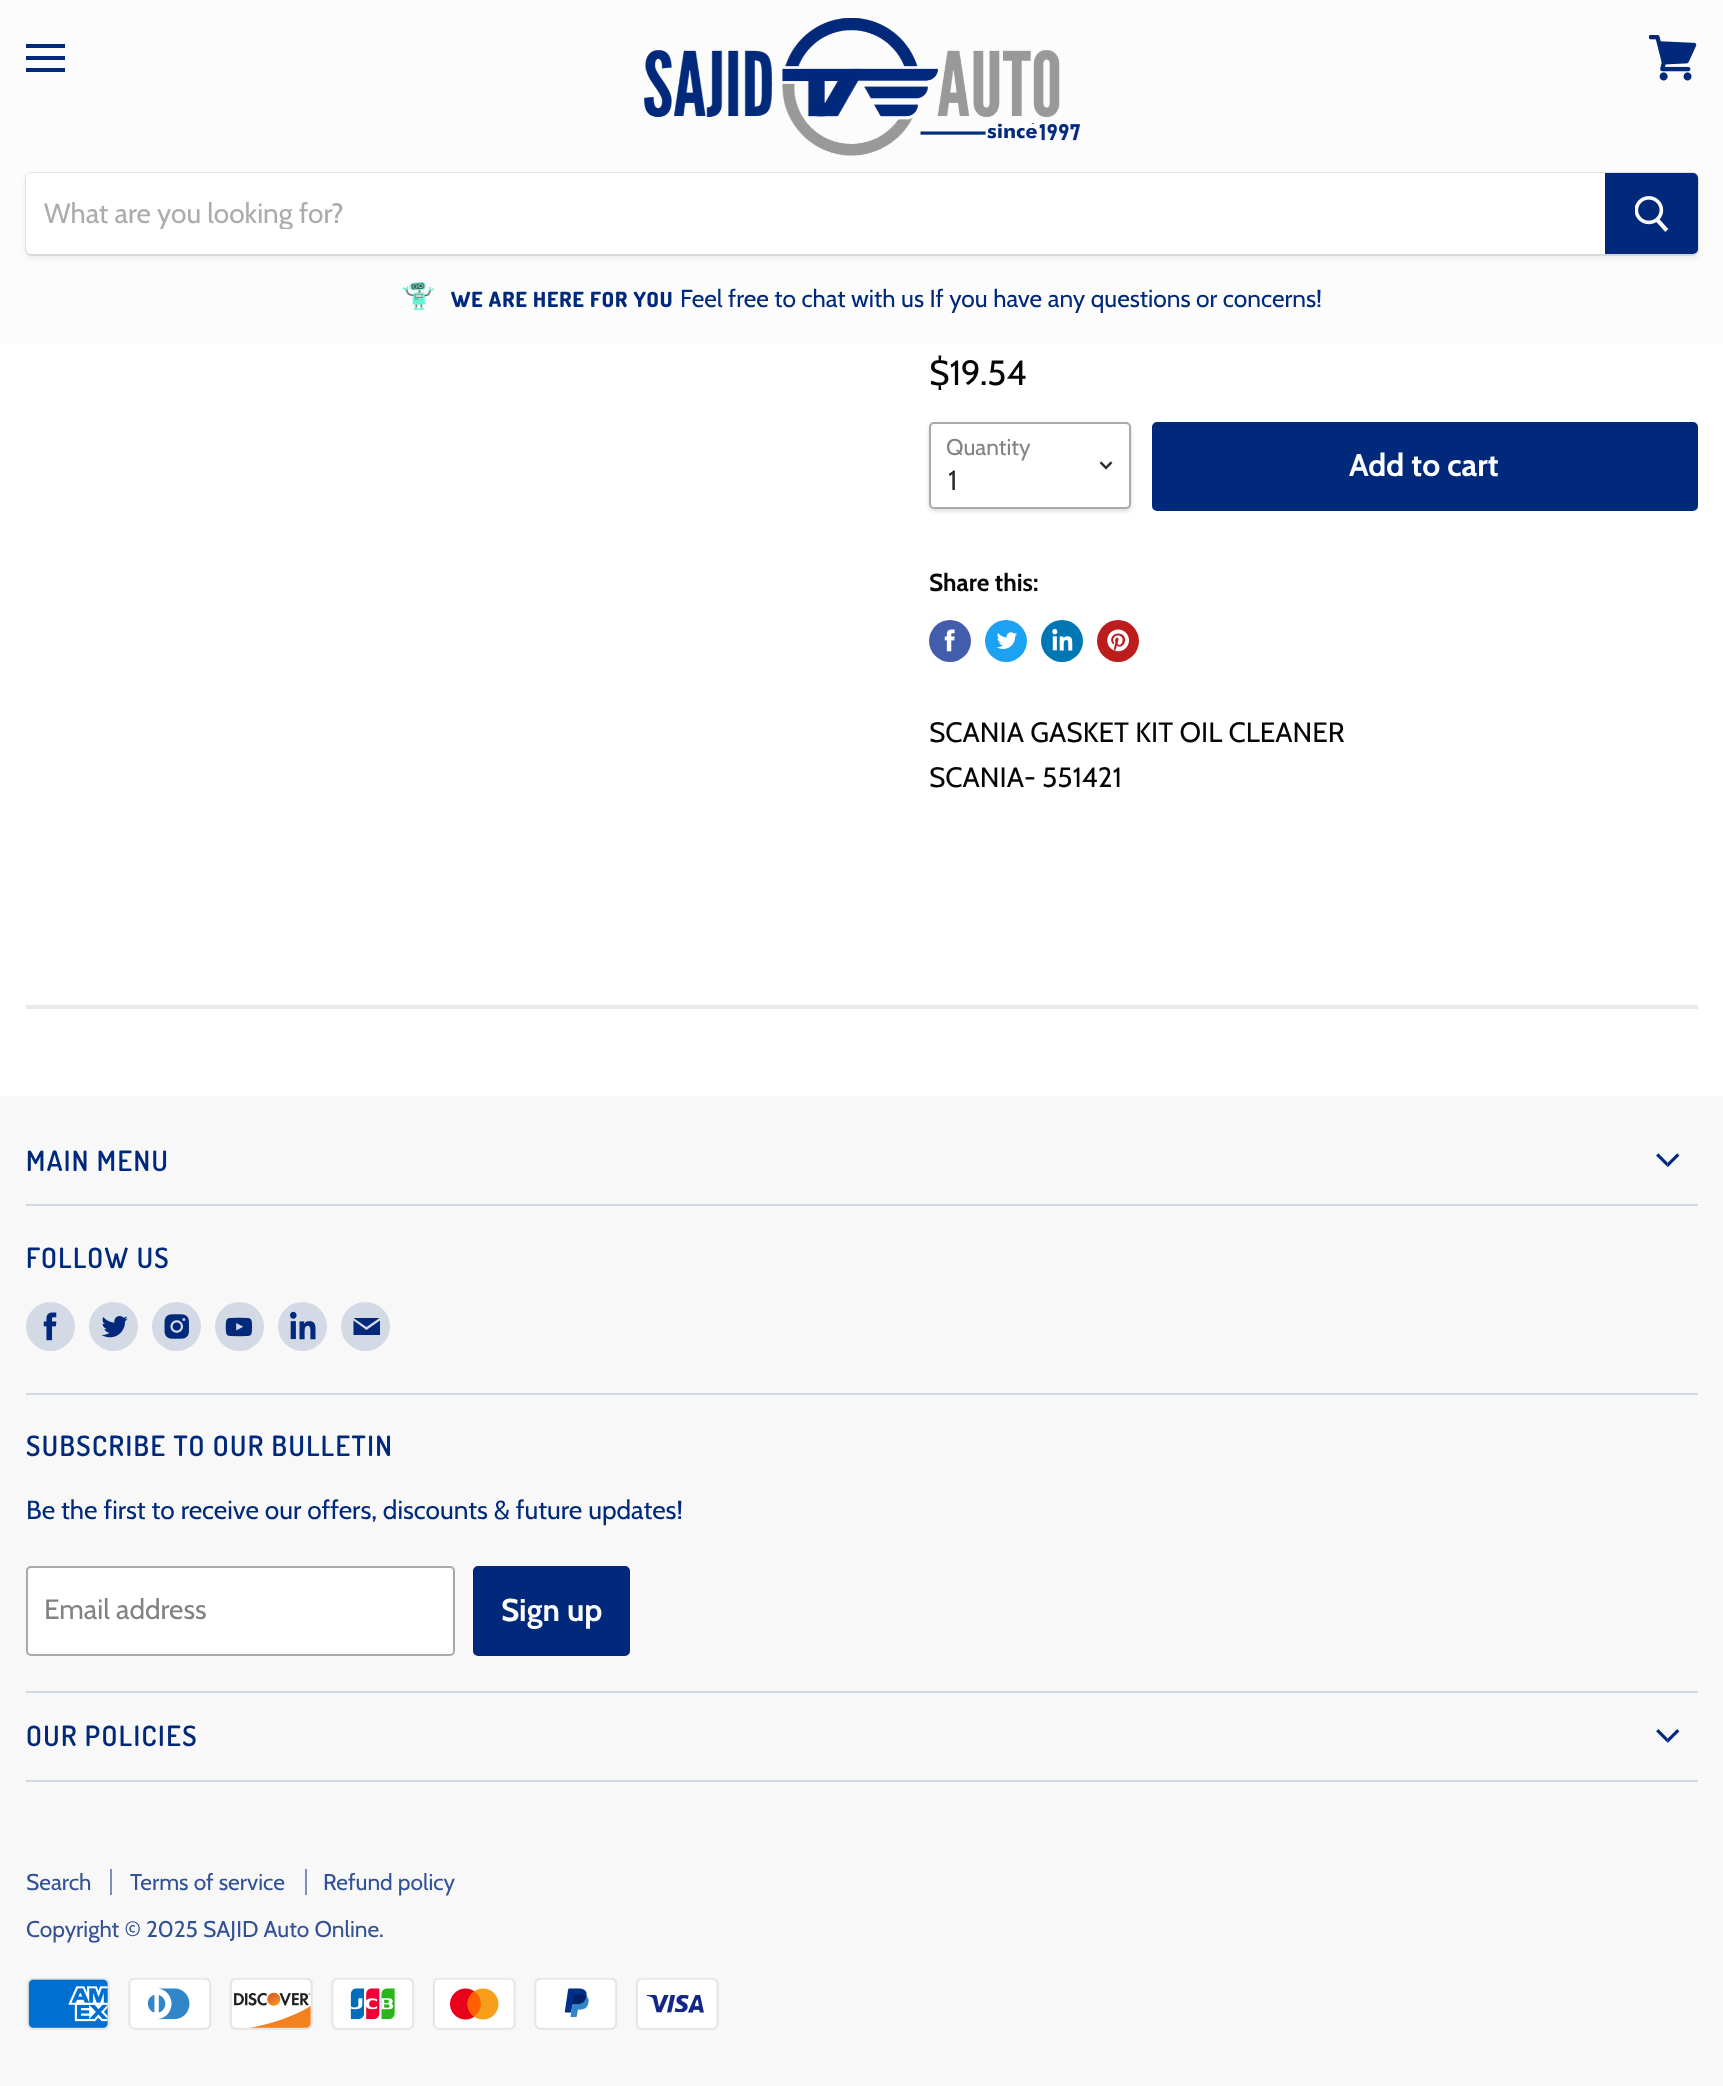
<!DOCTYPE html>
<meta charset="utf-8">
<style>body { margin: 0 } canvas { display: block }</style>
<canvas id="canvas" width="1723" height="2086"></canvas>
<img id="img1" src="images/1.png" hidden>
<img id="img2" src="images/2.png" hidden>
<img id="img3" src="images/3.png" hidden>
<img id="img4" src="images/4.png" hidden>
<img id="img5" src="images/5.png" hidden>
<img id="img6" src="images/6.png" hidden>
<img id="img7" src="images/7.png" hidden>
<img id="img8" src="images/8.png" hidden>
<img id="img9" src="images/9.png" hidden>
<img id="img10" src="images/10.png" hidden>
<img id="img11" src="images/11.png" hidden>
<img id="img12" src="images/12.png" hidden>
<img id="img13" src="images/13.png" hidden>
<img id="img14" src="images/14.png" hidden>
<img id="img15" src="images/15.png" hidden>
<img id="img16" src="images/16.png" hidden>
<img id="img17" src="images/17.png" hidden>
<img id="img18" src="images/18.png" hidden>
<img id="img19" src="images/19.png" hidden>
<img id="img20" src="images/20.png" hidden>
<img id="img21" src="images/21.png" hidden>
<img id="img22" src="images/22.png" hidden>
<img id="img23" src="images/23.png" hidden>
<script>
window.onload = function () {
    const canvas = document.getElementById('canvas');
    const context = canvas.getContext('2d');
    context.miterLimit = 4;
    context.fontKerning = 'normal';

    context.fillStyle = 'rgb(255, 255, 255)';
    context.fillRect(0, 0, 1723, 2086);
    context.fillStyle = 'rgb(252, 252, 252)';
    context.fillRect(0, 0, 1723, 343);
    context.fillStyle = 'rgb(0, 41, 123)';
    context.fillRect(26, 44, 39, 4);
    context.fillRect(26, 56, 39, 4);
    context.fillRect(26, 68, 39, 4);
    context.drawImage(document.getElementById('img1'), 1649, 35, 48, 46);
    context.drawImage(document.getElementById('img2'), 644, 18, 436, 138);
    context.fillStyle = 'rgba(127, 127, 127, 0.11)';
    context.filter = 'blur(2.5px)';
    context.beginPath();
    context.roundRect(25, 175, 1674, 84, 7);
    context.fill();
    context.filter = 'none';
    context.beginPath();
    context.roundRect(26, 173, 1672, 82, 6);
    context.strokeStyle = 'rgba(127, 127, 127, 0.2)';
    context.lineWidth = 2;
    context.stroke();
    context.fillStyle = 'rgb(255, 255, 255)';
    context.beginPath();
    context.roundRect(26, 173, 1579, 81, [5, 0, 0, 5]);
    context.fill();
    context.fillStyle = 'rgb(0, 41, 123)';
    context.beginPath();
    context.roundRect(1606, 174, 91, 79, [0, 4, 4, 0]);
    context.fill();
    context.strokeStyle = 'rgb(0, 41, 123)';
    context.stroke();
    context.drawImage(document.getElementById('img3'), 1635, 196, 34, 36);
    context.drawImage(document.getElementById('img4'), 402, 282, 33, 28);
    context.fillStyle = 'rgba(0, 0, 0, 0.15)';
    context.filter = 'blur(2px)';
    context.beginPath();
    context.roundRect(929, 424, 202, 87, 5);
    context.fill();
    context.filter = 'none';
    context.fillStyle = 'rgb(255, 255, 255)';
    context.beginPath();
    context.roundRect(930, 423, 200, 85, 4);
    context.fill();
    context.strokeStyle = 'rgb(169, 169, 169)';
    context.stroke();
    context.drawImage(document.getElementById('img5'), 1099, 461, 14, 9);
    context.fillStyle = 'rgb(0, 41, 123)';
    context.beginPath();
    context.roundRect(1153, 423, 544, 87, 4);
    context.fill();
    context.strokeStyle = 'rgb(0, 41, 123)';
    context.stroke();
    context.fillStyle = 'rgb(66, 93, 171)';
    context.beginPath();
    context.arc(950, 641, 21, 0, 2 * Math.PI);
    context.fill();
    context.drawImage(document.getElementById('img6'), 944, 629, 11, 23);
    context.fillStyle = 'rgb(29, 161, 242)';
    context.beginPath();
    context.arc(1006, 641, 21, 0, 2 * Math.PI);
    context.fill();
    context.drawImage(document.getElementById('img7'), 996, 632, 22, 17);
    context.fillStyle = 'rgb(0, 119, 181)';
    context.beginPath();
    context.arc(1062, 641, 21, 0, 2 * Math.PI);
    context.fill();
    context.drawImage(document.getElementById('img8'), 1052, 629, 21, 22);
    context.fillStyle = 'rgb(189, 28, 28)';
    context.beginPath();
    context.arc(1118, 641, 21, 0, 2 * Math.PI);
    context.fill();
    context.drawImage(document.getElementById('img9'), 1107, 629, 22, 23);
    context.fillStyle = 'rgba(127, 127, 127, 0.16)';
    context.fillRect(26, 1005, 1672, 4);
    context.fillStyle = 'rgb(248, 248, 248)';
    context.fillRect(0, 1096, 1723, 990);
    context.fillStyle = 'rgb(211, 217, 229)';
    context.fillRect(26, 1204, 1672, 2);
    context.drawImage(document.getElementById('img10'), 1656, 1153, 24, 14);
    context.fillRect(26, 1393, 1672, 2);
    context.beginPath();
    context.arc(50.5, 1326.5, 24.5, 0, 2 * Math.PI);
    context.fill();
    context.drawImage(document.getElementById('img11'), 43, 1312, 14, 29);
    context.beginPath();
    context.arc(113.5, 1326.5, 24.5, 0, 2 * Math.PI);
    context.fill();
    context.drawImage(document.getElementById('img12'), 101, 1316, 27, 22);
    context.beginPath();
    context.arc(176.5, 1326.5, 24.5, 0, 2 * Math.PI);
    context.fill();
    context.drawImage(document.getElementById('img13'), 164, 1314, 25, 25);
    context.beginPath();
    context.arc(239.5, 1326.5, 24.5, 0, 2 * Math.PI);
    context.fill();
    context.drawImage(document.getElementById('img14'), 225, 1317, 28, 20);
    context.beginPath();
    context.arc(302.5, 1326.5, 24.5, 0, 2 * Math.PI);
    context.fill();
    context.drawImage(document.getElementById('img15'), 290, 1311, 26, 29);
    context.beginPath();
    context.arc(365.5, 1326.5, 24.5, 0, 2 * Math.PI);
    context.fill();
    context.fillStyle = 'rgb(0, 41, 123)';
    context.beginPath();
    context.moveTo(379.5, 1318);
    context.lineTo(353.5, 1318);
    context.lineTo(366.5, 1327);
    context.closePath();
    context.moveTo(366.5, 1330);
    context.lineTo(353.5, 1320.5);
    context.lineTo(353.5, 1335);
    context.lineTo(380, 1335);
    context.lineTo(380, 1320.5);
    context.closePath();
    context.fill('evenodd');
    context.fillStyle = 'rgb(211, 217, 229)';
    context.fillRect(26, 1691, 1672, 2);
    context.fillStyle = 'rgb(255, 255, 255)';
    context.beginPath();
    context.roundRect(27, 1567, 427, 88, 4);
    context.fill();
    context.strokeStyle = 'rgb(169, 169, 169)';
    context.stroke();
    context.fillStyle = 'rgb(0, 41, 123)';
    context.beginPath();
    context.roundRect(474, 1567, 155, 88, 4);
    context.fill();
    context.strokeStyle = 'rgb(0, 41, 123)';
    context.stroke();
    context.fillStyle = 'rgb(211, 217, 229)';
    context.fillRect(26, 1780, 1672, 2);
    context.drawImage(document.getElementById('img16'), 1656, 1729, 24, 14);
    context.fillStyle = 'rgb(124, 145, 186)';
    context.fillRect(110, 1869, 2, 26);
    context.fillRect(305, 1869, 2, 26);
    context.drawImage(document.getElementById('img17'), 26, 1978, 84, 52);
    context.drawImage(document.getElementById('img18'), 128, 1978, 84, 52);
    context.drawImage(document.getElementById('img19'), 229, 1978, 84, 52);
    context.drawImage(document.getElementById('img20'), 331, 1978, 84, 52);
    context.drawImage(document.getElementById('img21'), 432, 1978, 84, 52);
    context.drawImage(document.getElementById('img22'), 534, 1978, 84, 52);
    context.drawImage(document.getElementById('img23'), 635, 1978, 84, 52);
    context.save();
    context.beginPath();
    context.rect(44, 196, 1543, 33);
    context.clip();
    context.font = '28px Cabin';
    context.fillStyle = 'rgb(173, 171, 171)';
    context.fillText('What are you looking for?', 44, 223);
    context.restore();
    context.letterSpacing = '1px';
    context.font = '800 21px Dosis';
    context.fillStyle = 'rgb(0, 41, 123)';
    context.fillText('WE ARE HERE FOR YOU', 451, 307);
    context.letterSpacing = '0px';
    context.font = '24.5px Cabin';
    context.fillText('Feel free to chat with us If you have any questions or concerns!', 680, 307);
    context.font = '35px Cabin';
    context.fillStyle = 'rgb(6, 6, 6)';
    context.fillText('$19.54', 929, 385);
    context.font = '22.75px Cabin';
    context.fillStyle = 'rgb(132, 129, 129)';
    context.fillText('Quantity', 946, 455);
    context.font = '28px Cabin';
    context.fillStyle = 'rgb(50, 45, 45)';
    context.fillText('1', 948, 490);
    context.font = 'bold 31.5px Cabin';
    context.fillStyle = 'rgb(252, 252, 252)';
    context.fillText('Add to cart', 1349, 476);
    context.font = 'bold 24.5px Cabin';
    context.fillStyle = 'rgb(6, 6, 6)';
    context.fillText('Share this:', 929, 591);
    context.font = '28px Cabin';
    context.fillText('SCANIA GASKET KIT OIL CLEANER', 929, 742);
    context.fillText('SCANIA- 551421', 929, 787);
    context.letterSpacing = '1.4px';
    context.font = '600 28px Dosis';
    context.fillStyle = 'rgb(0, 41, 123)';
    context.fillText('MAIN MENU', 26, 1171);
    context.fillText('FOLLOW US', 26, 1268);
    context.fillText('SUBSCRIBE TO OUR BULLETIN', 26, 1456);
    context.letterSpacing = '0px';
    context.font = '26.25px Cabin';
    context.fillText('Be the first to receive our offers, discounts & future updates!', 26, 1519);
    context.font = '28px Cabin';
    context.fillStyle = 'rgb(132, 129, 129)';
    context.fillText('Email address', 44, 1619);
    context.font = 'bold 31.5px Cabin';
    context.fillStyle = 'rgb(252, 252, 252)';
    context.fillText('Sign up', 501, 1621);
    context.letterSpacing = '1.4px';
    context.font = '600 28px Dosis';
    context.fillStyle = 'rgb(0, 41, 123)';
    context.fillText('OUR POLICIES', 26, 1746);
    context.letterSpacing = '0px';
    context.font = '22.75px Cabin';
    context.fillStyle = 'rgb(50, 82, 148)';
    context.fillText('Search', 26, 1890);
    context.fillText('Terms of service', 130, 1890);
    context.fillText('Refund policy', 323, 1890);
    context.fillText('Copyright © 2025 SAJID Auto Online.', 26, 1937);
};
</script>
